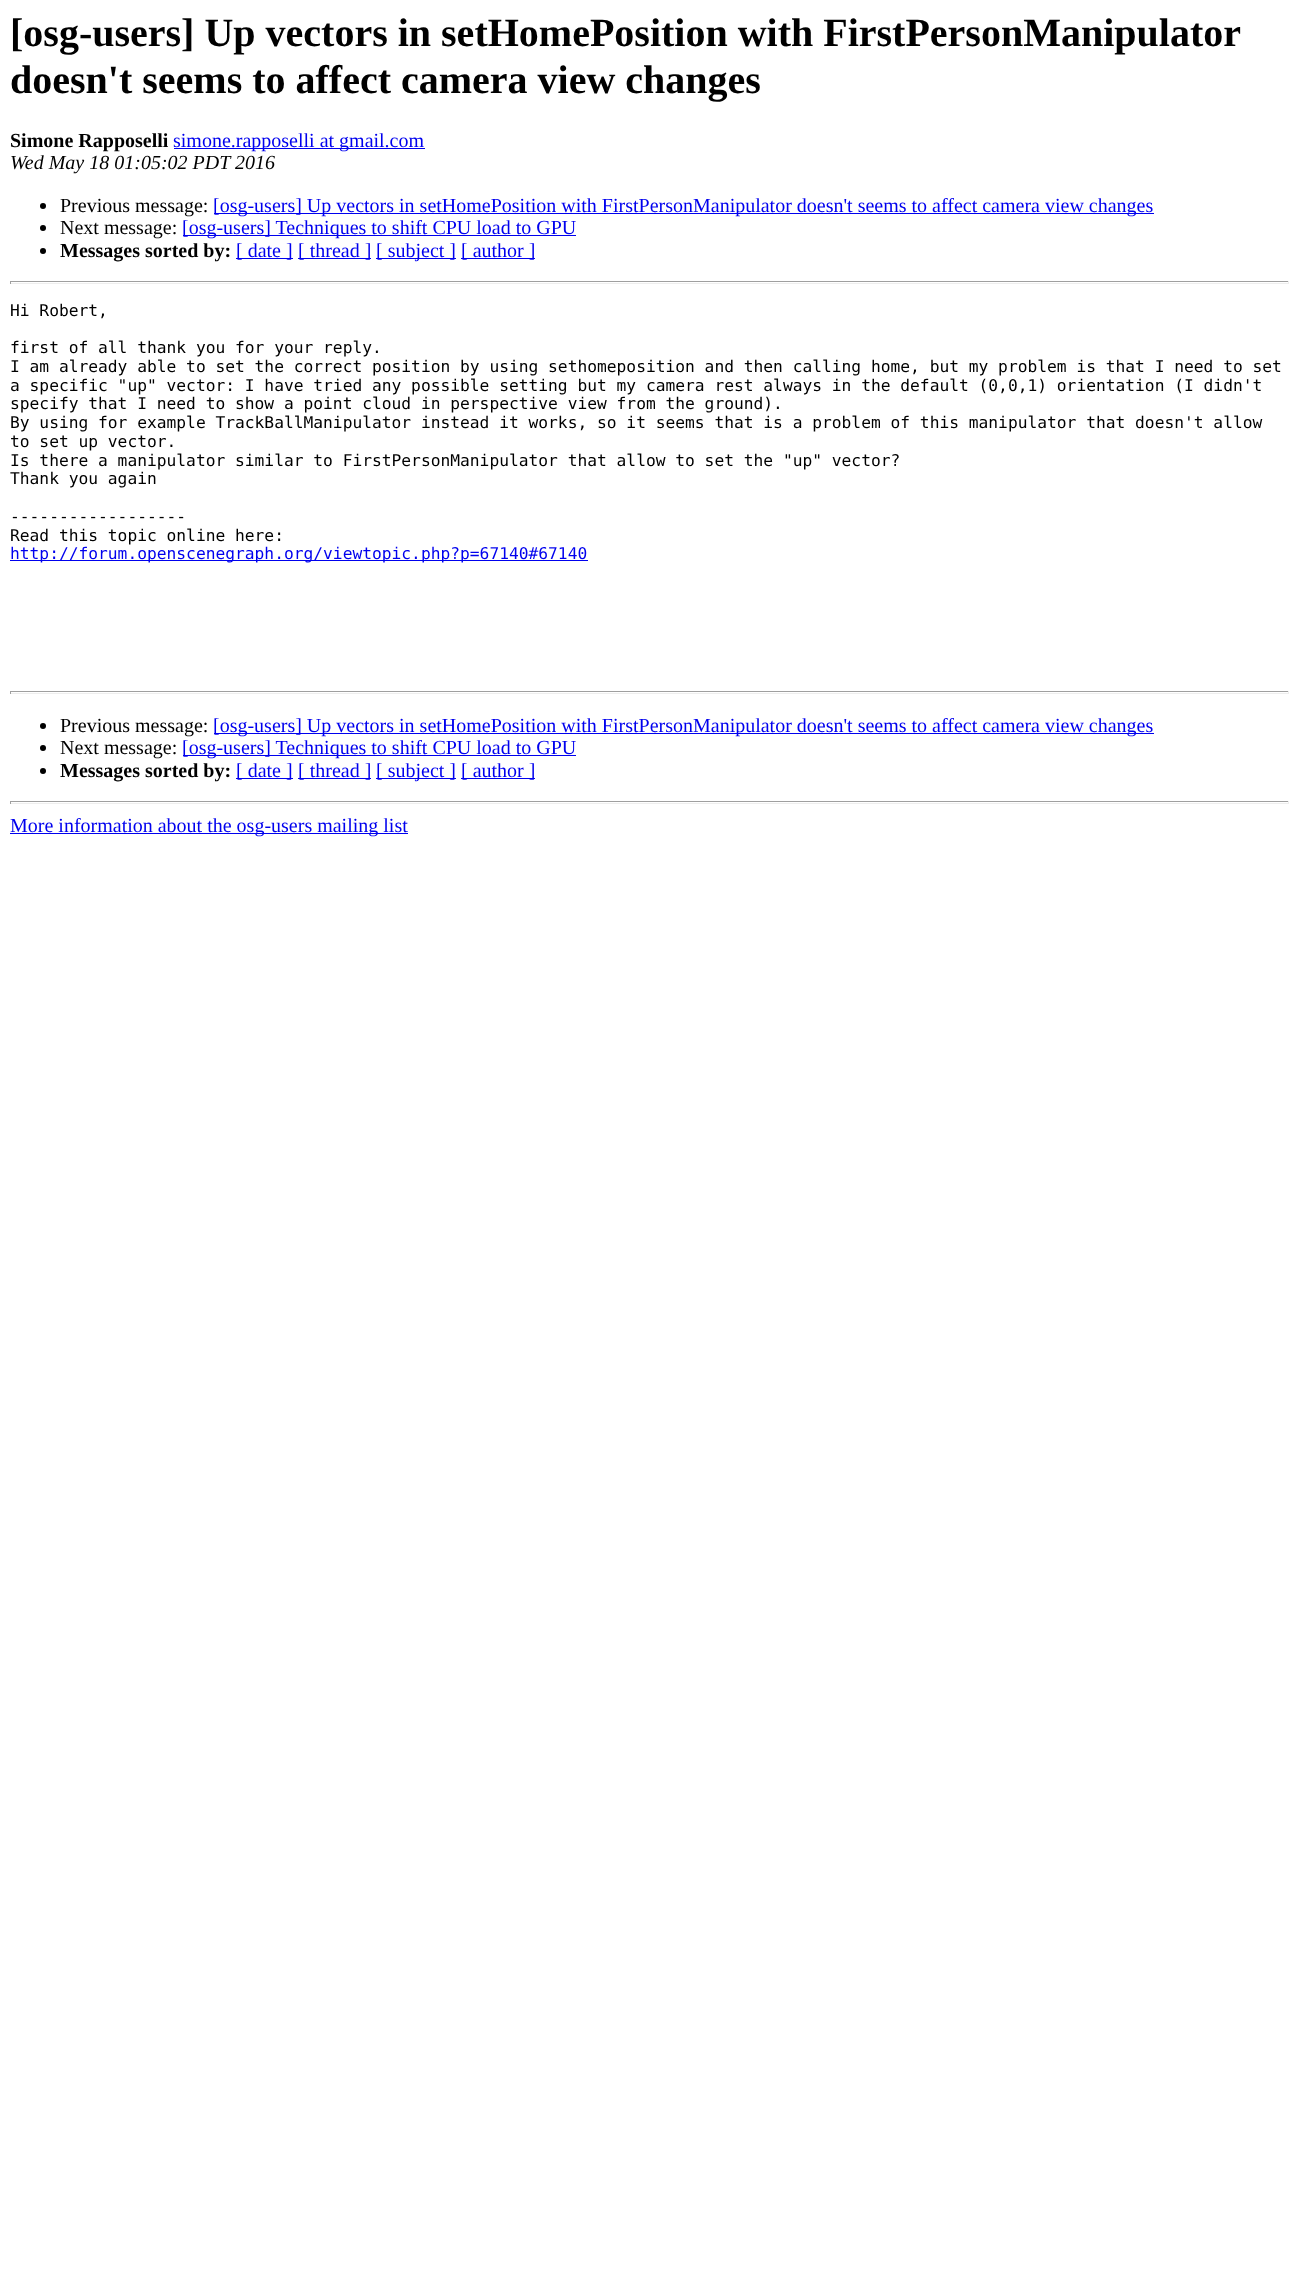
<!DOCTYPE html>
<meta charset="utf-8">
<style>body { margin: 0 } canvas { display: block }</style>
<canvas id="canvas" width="1298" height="2270"></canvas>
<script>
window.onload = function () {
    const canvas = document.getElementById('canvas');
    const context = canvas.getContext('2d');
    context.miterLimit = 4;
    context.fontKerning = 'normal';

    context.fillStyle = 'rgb(255, 255, 255)';
    context.fillRect(0, 0, 1298, 2270);
    context.fillStyle = 'rgb(0, 0, 238)';
    context.fillRect(174, 148, 251, 1);
    context.fillStyle = 'rgb(0, 0, 0)';
    context.beginPath();
    context.arc(43, 206, 3, 0, 2 * Math.PI);
    context.fill();
    context.fillStyle = 'rgb(0, 0, 238)';
    context.fillRect(214, 213, 940, 1);
    context.fillStyle = 'rgb(0, 0, 0)';
    context.beginPath();
    context.arc(43, 228, 3, 0, 2 * Math.PI);
    context.fill();
    context.fillStyle = 'rgb(0, 0, 238)';
    context.fillRect(183, 235, 393, 1);
    context.fillStyle = 'rgb(0, 0, 0)';
    context.beginPath();
    context.arc(43, 251, 3, 0, 2 * Math.PI);
    context.fill();
    context.fillStyle = 'rgb(0, 0, 238)';
    context.fillRect(236, 258, 57, 1);
    context.fillRect(298, 258, 73, 1);
    context.fillRect(376, 258, 80, 1);
    context.fillRect(461, 258, 74, 1);
    context.fillStyle = 'rgb(159, 159, 159)';
    context.fillRect(10, 281, 1279, 1);
    context.fillStyle = 'rgb(238, 238, 238)';
    context.fillRect(1288, 281, 1, 3);
    context.fillRect(10, 283, 1279, 1);
    context.fillStyle = 'rgb(159, 159, 159)';
    context.fillRect(10, 281, 1, 3);
    context.fillStyle = 'rgb(0, 0, 238)';
    context.fillRect(10, 560, 578, 1);
    context.fillStyle = 'rgb(159, 159, 159)';
    context.fillRect(10, 691, 1279, 1);
    context.fillStyle = 'rgb(238, 238, 238)';
    context.fillRect(1288, 691, 1, 3);
    context.fillRect(10, 693, 1279, 1);
    context.fillStyle = 'rgb(159, 159, 159)';
    context.fillRect(10, 691, 1, 3);
    context.fillStyle = 'rgb(0, 0, 0)';
    context.beginPath();
    context.arc(43, 726, 3, 0, 2 * Math.PI);
    context.fill();
    context.fillStyle = 'rgb(0, 0, 238)';
    context.fillRect(214, 733, 940, 1);
    context.fillStyle = 'rgb(0, 0, 0)';
    context.beginPath();
    context.arc(43, 748, 3, 0, 2 * Math.PI);
    context.fill();
    context.fillStyle = 'rgb(0, 0, 238)';
    context.fillRect(183, 755, 393, 1);
    context.fillStyle = 'rgb(0, 0, 0)';
    context.beginPath();
    context.arc(43, 771, 3, 0, 2 * Math.PI);
    context.fill();
    context.fillStyle = 'rgb(0, 0, 238)';
    context.fillRect(236, 778, 57, 1);
    context.fillRect(298, 778, 73, 1);
    context.fillRect(376, 778, 80, 1);
    context.fillRect(461, 778, 74, 1);
    context.fillStyle = 'rgb(159, 159, 159)';
    context.fillRect(10, 801, 1279, 1);
    context.fillStyle = 'rgb(238, 238, 238)';
    context.fillRect(1288, 801, 1, 3);
    context.fillRect(10, 803, 1279, 1);
    context.fillStyle = 'rgb(159, 159, 159)';
    context.fillRect(10, 801, 1, 3);
    context.fillStyle = 'rgb(0, 0, 238)';
    context.fillRect(10, 833, 398, 1);
    context.font = 'bold 40px Liberation Serif';
    context.fillStyle = 'rgb(0, 0, 0)';
    context.fillText('[osg-users] Up vectors in setHomePosition with FirstPersonManipulator', 10, 46);
    context.fillText('doesn\'t seems to affect camera view changes', 10, 93);
    context.font = 'bold 20px Liberation Serif';
    context.fillText('Simone Rapposelli', 10, 147);
    context.font = '20px Liberation Serif';
    context.fillStyle = 'rgb(0, 0, 238)';
    context.fillText('simone.rapposelli at gmail.com', 173, 147);
    context.font = 'italic 20px Liberation Serif';
    context.fillStyle = 'rgb(0, 0, 0)';
    context.fillText('Wed May 18 01:05:02 PDT 2016', 10, 169);
    context.font = '20px Liberation Serif';
    context.fillText('Previous message:', 60, 212);
    context.fillStyle = 'rgb(0, 0, 238)';
    context.fillText('[osg-users] Up vectors in setHomePosition with FirstPersonManipulator doesn\'t seems to affect camera view changes', 213, 212);
    context.fillStyle = 'rgb(0, 0, 0)';
    context.fillText('Next message:', 60, 234);
    context.fillStyle = 'rgb(0, 0, 238)';
    context.fillText('[osg-users] Techniques to shift CPU load to GPU', 182, 234);
    context.font = 'bold 20px Liberation Serif';
    context.fillStyle = 'rgb(0, 0, 0)';
    context.fillText('Messages sorted by:', 60, 257);
    context.font = '20px Liberation Serif';
    context.fillStyle = 'rgb(0, 0, 238)';
    context.fillText('[ date ]', 236, 257);
    context.fillText('[ thread ]', 298, 257);
    context.fillText('[ subject ]', 376, 257);
    context.fillText('[ author ]', 461, 257);
    context.font = '16.25px DejaVu Sans Mono';
    context.fillStyle = 'rgb(0, 0, 0)';
    context.fillText('Hi Robert,', 10, 316);
    context.fillText('first of all thank you for your reply.', 10, 353);
    context.fillText('I am already able to set the correct position by using sethomeposition and then calling home, but my problem is that I need to set', 10, 372);
    context.fillText('a specific "up" vector: I have tried any possible setting but my camera rest always in the default (0,0,1) orientation (I didn\'t', 10, 391);
    context.fillText('specify that I need to show a point cloud in perspective view from the ground).', 10, 409);
    context.fillText('By using for example TrackBallManipulator instead it works, so it seems that is a problem of this manipulator that doesn\'t allow', 10, 428);
    context.fillText('to set up vector.', 10, 447);
    context.fillText('Is there a manipulator similar to FirstPersonManipulator that allow to set the "up" vector?', 10, 466);
    context.fillText('Thank you again', 10, 484);
    context.fillText('------------------', 10, 522);
    context.fillText('Read this topic online here:', 10, 541);
    context.fillStyle = 'rgb(0, 0, 238)';
    context.fillText('http://forum.openscenegraph.org/viewtopic.php?p=67140#67140', 10, 559);
    context.font = '20px Liberation Serif';
    context.fillStyle = 'rgb(0, 0, 0)';
    context.fillText('Previous message:', 60, 732);
    context.fillStyle = 'rgb(0, 0, 238)';
    context.fillText('[osg-users] Up vectors in setHomePosition with FirstPersonManipulator doesn\'t seems to affect camera view changes', 213, 732);
    context.fillStyle = 'rgb(0, 0, 0)';
    context.fillText('Next message:', 60, 754);
    context.fillStyle = 'rgb(0, 0, 238)';
    context.fillText('[osg-users] Techniques to shift CPU load to GPU', 182, 754);
    context.font = 'bold 20px Liberation Serif';
    context.fillStyle = 'rgb(0, 0, 0)';
    context.fillText('Messages sorted by:', 60, 777);
    context.font = '20px Liberation Serif';
    context.fillStyle = 'rgb(0, 0, 238)';
    context.fillText('[ date ]', 236, 777);
    context.fillText('[ thread ]', 298, 777);
    context.fillText('[ subject ]', 376, 777);
    context.fillText('[ author ]', 461, 777);
    context.fillText('More information about the osg-users mailing list', 10, 832);
};
</script>
